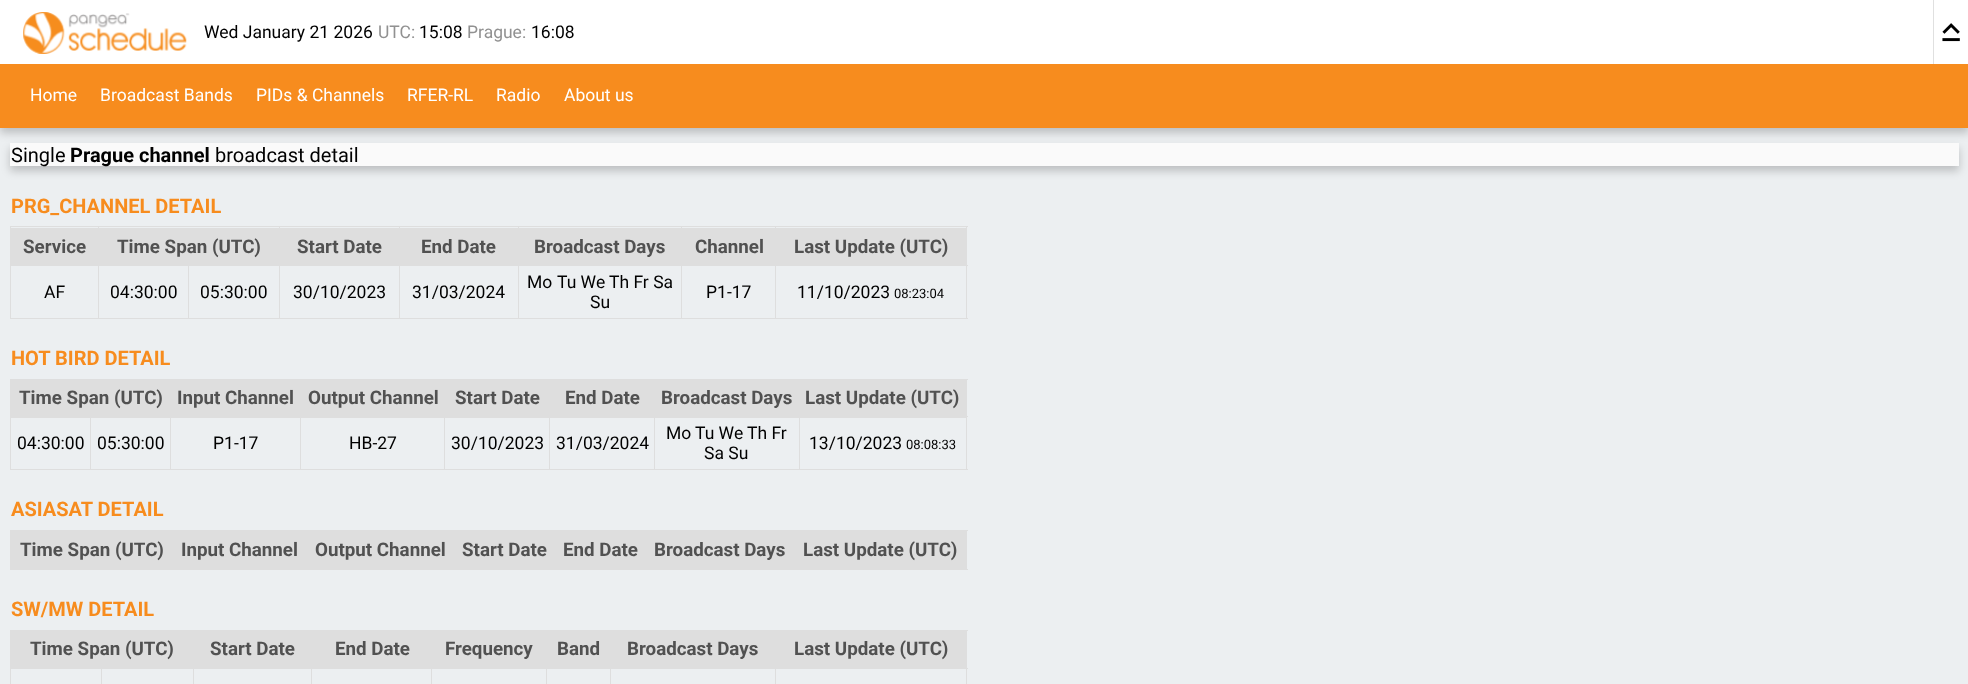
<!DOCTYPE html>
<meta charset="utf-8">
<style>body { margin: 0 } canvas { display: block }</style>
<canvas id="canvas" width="1968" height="684"></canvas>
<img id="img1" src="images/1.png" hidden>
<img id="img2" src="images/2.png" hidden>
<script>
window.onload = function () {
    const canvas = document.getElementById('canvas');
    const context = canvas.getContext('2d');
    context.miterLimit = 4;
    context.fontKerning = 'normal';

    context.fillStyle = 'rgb(236, 239, 241)';
    context.fillRect(0, 0, 1968, 684);
    context.fillStyle = 'rgba(0, 0, 0, 0.2)';
    context.filter = 'blur(4px)';
    context.beginPath();
    context.rect(0, 5, 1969, 128);
    context.fill();
    context.filter = 'none';
    context.fillStyle = 'rgb(255, 255, 255)';
    context.fillRect(0, 0, 1968, 64);
    context.drawImage(document.getElementById('img1'), 23, 12, 164, 42);
    context.drawImage(document.getElementById('img2'), 1942, 23, 18, 19);
    context.fillStyle = 'rgb(224, 224, 224)';
    context.fillRect(1933, 0, 1, 64);
    context.fillStyle = 'rgb(247, 140, 30)';
    context.fillRect(0, 64, 1968, 64);
    context.fillStyle = 'rgba(0, 0, 0, 0.2)';
    context.filter = 'blur(4px)';
    context.beginPath();
    context.rect(10, 148, 1949, 23);
    context.fill();
    context.filter = 'none';
    context.fillStyle = 'rgb(250, 250, 250)';
    context.fillRect(10, 143, 1949, 23);
    context.fillStyle = 'rgb(222, 222, 222)';
    context.fillRect(11, 228, 955, 37);
    context.fillRect(775, 226, 193, 1);
    context.fillRect(775, 226, 1, 2);
    context.fillRect(681, 226, 95, 1);
    context.fillRect(681, 226, 1, 2);
    context.fillRect(518, 226, 165, 1);
    context.fillRect(518, 226, 1, 2);
    context.fillRect(399, 226, 120, 1);
    context.fillRect(399, 226, 1, 2);
    context.fillRect(279, 226, 121, 1);
    context.fillRect(279, 226, 1, 2);
    context.fillRect(98, 226, 182, 1);
    context.fillRect(98, 226, 1, 2);
    context.fillRect(10, 226, 89, 1);
    context.fillRect(775, 265, 193, 1);
    context.fillRect(966, 265, 1, 54);
    context.fillRect(775, 318, 193, 1);
    context.fillRect(775, 265, 1, 54);
    context.fillRect(681, 265, 95, 1);
    context.fillRect(681, 318, 95, 1);
    context.fillRect(681, 265, 1, 54);
    context.fillRect(518, 265, 165, 1);
    context.fillRect(518, 318, 165, 1);
    context.fillRect(518, 265, 1, 54);
    context.fillRect(399, 265, 120, 1);
    context.fillRect(399, 318, 120, 1);
    context.fillRect(399, 265, 1, 54);
    context.fillRect(279, 265, 121, 1);
    context.fillRect(279, 318, 121, 1);
    context.fillRect(279, 265, 1, 54);
    context.fillRect(188, 265, 92, 1);
    context.fillRect(188, 318, 92, 1);
    context.fillRect(188, 265, 1, 54);
    context.fillRect(98, 265, 91, 1);
    context.fillRect(98, 318, 91, 1);
    context.fillRect(98, 265, 1, 54);
    context.fillRect(10, 265, 89, 1);
    context.fillRect(10, 318, 89, 1);
    context.fillRect(10, 265, 1, 54);
    context.fillRect(10, 226, 1, 40);
    context.fillRect(966, 226, 1, 40);
    context.fillRect(11, 379, 955, 39);
    context.fillRect(10, 416, 1, 1);
    context.fillRect(966, 416, 2, 1);
    context.fillRect(966, 416, 1, 54);
    context.fillRect(799, 469, 169, 1);
    context.fillRect(799, 416, 1, 54);
    context.fillRect(654, 469, 146, 1);
    context.fillRect(654, 416, 1, 54);
    context.fillRect(549, 469, 106, 1);
    context.fillRect(549, 416, 1, 54);
    context.fillRect(444, 469, 106, 1);
    context.fillRect(444, 416, 1, 54);
    context.fillRect(300, 469, 145, 1);
    context.fillRect(300, 416, 1, 54);
    context.fillRect(170, 469, 131, 1);
    context.fillRect(170, 416, 1, 54);
    context.fillRect(90, 469, 81, 1);
    context.fillRect(90, 416, 1, 54);
    context.fillRect(10, 469, 81, 1);
    context.fillRect(10, 416, 1, 54);
    context.fillRect(10, 379, 1, 39);
    context.fillRect(966, 379, 2, 1);
    context.fillRect(966, 379, 1, 39);
    context.fillRect(11, 531, 955, 38);
    context.fillRect(10, 530, 958, 1);
    context.fillRect(966, 530, 1, 40);
    context.fillRect(10, 569, 958, 1);
    context.fillRect(10, 530, 1, 40);
    context.fillRect(11, 630, 955, 39);
    context.fillRect(10, 668, 1, 16);
    context.fillRect(10, 630, 1, 39);
    context.fillRect(966, 630, 2, 1);
    context.fillRect(966, 668, 2, 1);
    context.fillRect(966, 668, 1, 16);
    context.fillRect(966, 630, 1, 39);
    context.fillRect(101, 668, 1, 16);
    context.fillRect(193, 668, 1, 16);
    context.fillRect(311, 668, 1, 16);
    context.fillRect(431, 668, 1, 16);
    context.fillRect(546, 668, 1, 16);
    context.fillRect(610, 668, 1, 16);
    context.fillRect(775, 668, 1, 16);
    context.font = '17.5px Roboto';
    context.fillStyle = 'rgb(0, 0, 0)';
    context.fillText('Wed January 21 2026', 204, 38);
    context.fillStyle = 'rgb(145, 145, 145)';
    context.fillText('UTC:', 378, 38);
    context.fillStyle = 'rgb(0, 0, 0)';
    context.fillText('15:08', 419, 38);
    context.fillStyle = 'rgb(145, 145, 145)';
    context.fillText('Prague:', 467, 38);
    context.fillStyle = 'rgb(0, 0, 0)';
    context.fillText('16:08', 531, 38);
    context.fillStyle = 'rgb(255, 255, 255)';
    context.fillText('Home', 30, 101);
    context.fillText('Broadcast Bands', 100, 101);
    context.fillText('PIDs & Channels', 256, 101);
    context.fillText('RFER-RL', 407, 101);
    context.fillText('Radio', 496, 101);
    context.fillText('About us', 564, 101);
    context.font = '20px Roboto';
    context.fillStyle = 'rgb(0, 0, 0)';
    context.fillText('Single', 11, 162);
    context.font = 'bold 20px Roboto';
    context.fillText('Prague channel', 70, 162);
    context.font = '20px Roboto';
    context.fillText('broadcast detail', 215, 162);
    context.font = 'bold 20px Roboto';
    context.fillStyle = 'rgb(247, 140, 30)';
    context.fillText('PRG_CHANNEL DETAIL', 11, 213);
    context.font = 'bold 18.75px Roboto';
    context.fillStyle = 'rgb(81, 81, 81)';
    context.fillText('Service', 23, 253);
    context.fillText('Time Span (UTC)', 117, 253);
    context.fillText('Start Date', 297, 253);
    context.fillText('End Date', 421, 253);
    context.fillText('Broadcast Days', 534, 253);
    context.fillText('Channel', 695, 253);
    context.fillText('Last Update (UTC)', 794, 253);
    context.font = '17.5px Roboto';
    context.fillStyle = 'rgb(0, 0, 0)';
    context.fillText('AF', 44, 298);
    context.fillText('04:30:00', 110, 298);
    context.fillText('05:30:00', 200, 298);
    context.fillText('30/10/2023', 293, 298);
    context.fillText('31/03/2024', 412, 298);
    context.fillText('Mo', 527, 288);
    context.fillText('Tu We', 557, 288);
    context.fillText('Th Fr Sa', 609, 288);
    context.fillText('Su', 590, 308);
    context.fillText('P1-17', 706, 298);
    context.fillText('11/10/2023', 797, 298);
    context.font = '13px Roboto';
    context.fillText('08:23:04', 894, 298);
    context.font = 'bold 20px Roboto';
    context.fillStyle = 'rgb(247, 140, 30)';
    context.fillText('HOT BIRD DETAIL', 11, 365);
    context.font = 'bold 18.75px Roboto';
    context.fillStyle = 'rgb(81, 81, 81)';
    context.fillText('Time Span (UTC)', 19, 404);
    context.fillText('Input Channel', 177, 404);
    context.fillText('Output Channel', 308, 404);
    context.fillText('Start Date', 455, 404);
    context.fillText('End Date', 565, 404);
    context.fillText('Broadcast Days', 661, 404);
    context.fillText('Last Update (UTC)', 805, 404);
    context.font = '17.5px Roboto';
    context.fillStyle = 'rgb(0, 0, 0)';
    context.fillText('04:30:00', 17, 449);
    context.fillText('05:30:00', 97, 449);
    context.fillText('P1-17', 213, 449);
    context.fillText('HB-27', 349, 449);
    context.fillText('30/10/2023', 451, 449);
    context.fillText('31/03/2024', 556, 449);
    context.fillText('Mo', 666, 439);
    context.fillText('Tu We', 695, 439);
    context.fillText('Th Fr', 747, 439);
    context.fillText('Sa Su', 704, 459);
    context.fillText('13/10/2023', 809, 449);
    context.font = '13px Roboto';
    context.fillText('08:08:33', 906, 449);
    context.font = 'bold 20px Roboto';
    context.fillStyle = 'rgb(247, 140, 30)';
    context.fillText('ASIASAT DETAIL', 11, 516);
    context.font = 'bold 18.75px Roboto';
    context.fillStyle = 'rgb(81, 81, 81)';
    context.fillText('Time Span (UTC)', 20, 556);
    context.fillText('Input Channel', 181, 556);
    context.fillText('Output Channel', 315, 556);
    context.fillText('Start Date', 462, 556);
    context.fillText('End Date', 563, 556);
    context.fillText('Broadcast Days', 654, 556);
    context.fillText('Last Update (UTC)', 803, 556);
    context.font = 'bold 20px Roboto';
    context.fillStyle = 'rgb(247, 140, 30)';
    context.fillText('SW/MW DETAIL', 11, 616);
    context.font = 'bold 18.75px Roboto';
    context.fillStyle = 'rgb(81, 81, 81)';
    context.fillText('Time Span (UTC)', 30, 655);
    context.fillText('Start Date', 210, 655);
    context.fillText('End Date', 335, 655);
    context.fillText('Frequency', 445, 655);
    context.fillText('Band', 557, 655);
    context.fillText('Broadcast Days', 627, 655);
    context.fillText('Last Update (UTC)', 794, 655);
};
</script>
